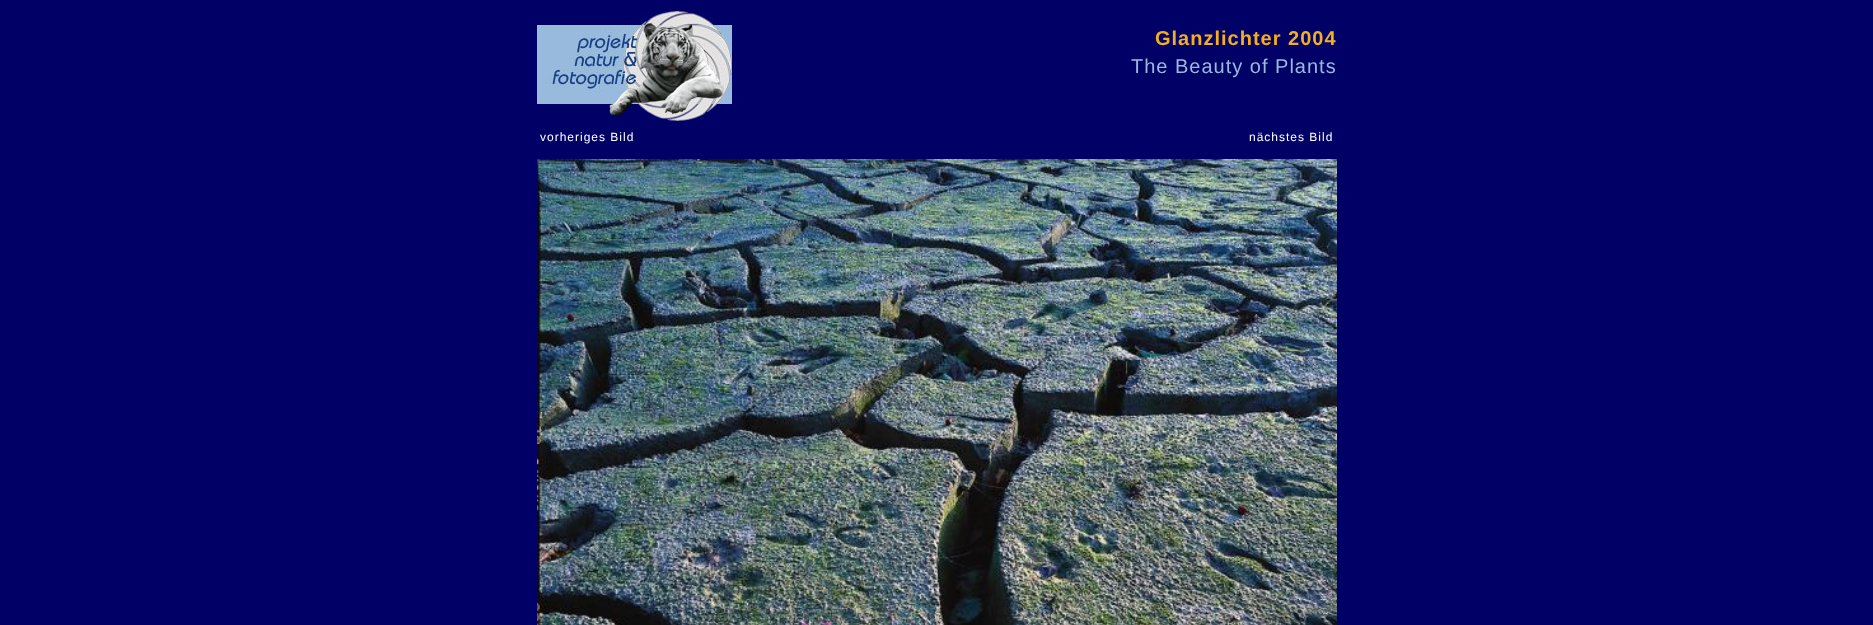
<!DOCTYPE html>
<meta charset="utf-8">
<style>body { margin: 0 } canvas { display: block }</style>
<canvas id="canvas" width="1873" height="625"></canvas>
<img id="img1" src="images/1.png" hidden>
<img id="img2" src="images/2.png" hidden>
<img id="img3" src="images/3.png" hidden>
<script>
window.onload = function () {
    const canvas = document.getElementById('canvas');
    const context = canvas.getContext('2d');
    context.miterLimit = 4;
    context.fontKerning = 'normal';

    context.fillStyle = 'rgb(0, 0, 102)';
    context.fillRect(0, 0, 1873, 625);
    context.drawImage(document.getElementById('img1'), 537, 5, 195, 99);
    context.drawImage(document.getElementById('img2'), 609, 104, 112, 23);
    context.drawImage(document.getElementById('img3'), 537, 159, 800, 466);
    context.letterSpacing = '1px';
    context.font = 'bold 20px Liberation Sans';
    context.fillStyle = 'rgb(245, 174, 34)';
    context.fillText('Glanzlichter 2004', 1155, 45);
    context.font = '20px Liberation Sans';
    context.fillStyle = 'rgb(152, 186, 221)';
    context.fillText('The Beauty of Plants', 1131, 73);
    context.font = '12px Liberation Sans';
    context.fillStyle = 'rgb(255, 255, 255)';
    context.fillText('vorheriges Bild', 540, 141);
    context.fillText('nächstes Bild', 1249, 141);
};
</script>
